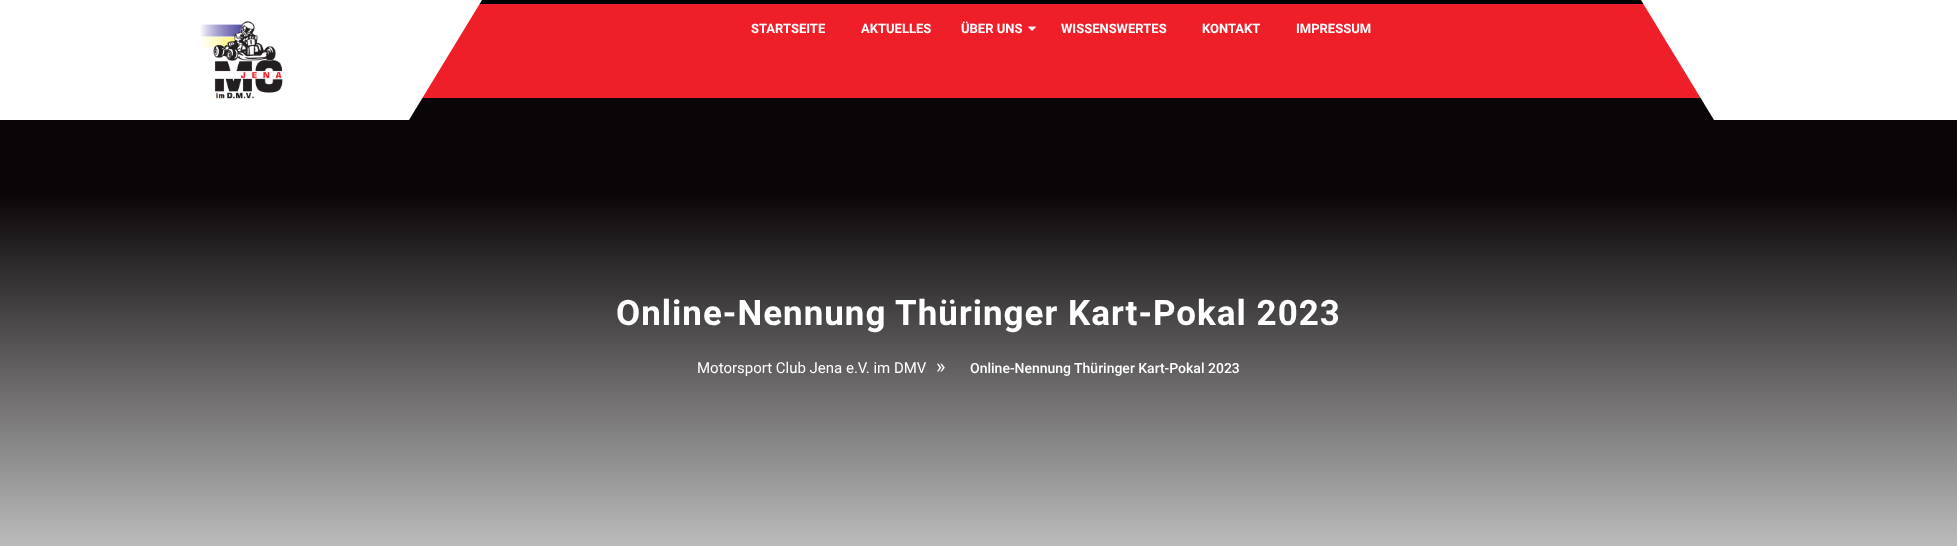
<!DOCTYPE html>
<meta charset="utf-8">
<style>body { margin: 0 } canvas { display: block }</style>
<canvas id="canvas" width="1957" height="546"></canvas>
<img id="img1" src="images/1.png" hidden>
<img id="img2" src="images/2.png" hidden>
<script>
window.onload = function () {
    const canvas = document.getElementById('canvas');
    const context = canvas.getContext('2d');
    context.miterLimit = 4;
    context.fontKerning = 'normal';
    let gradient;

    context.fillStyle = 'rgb(239, 31, 41)';
    context.fillRect(0, 0, 1957, 546);
    context.fillStyle = 'rgb(0, 0, 0)';
    context.fillRect(479, 0, 1165, 4);
    gradient = context.createLinearGradient(979, 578, 979, 98);
    gradient.addColorStop(0, 'rgb(204, 204, 204)');
    gradient.addColorStop(0.8, 'rgb(10, 6, 7)');
    context.fillStyle = gradient;
    context.fillRect(0, 98, 1957, 448);
    context.fillStyle = 'rgb(255, 255, 255)';
    context.beginPath();
    context.moveTo(0, 0);
    context.lineTo(0, 120);
    context.lineTo(409, 120);
    context.lineTo(482, 0);
    context.closePath();
    context.fill();
    context.drawImage(document.getElementById('img1'), 200, 21, 83, 78);
    context.drawImage(document.getElementById('img2'), 1028, 26, 8, 5);
    context.beginPath();
    context.moveTo(1641, 0);
    context.lineTo(1714, 120);
    context.lineTo(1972, 120);
    context.lineTo(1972, 0);
    context.closePath();
    context.fill();
    context.font = 'bold 13px Roboto';
    context.fillText('STARTSEITE', 751, 33);
    context.fillText('AKTUELLES', 861, 33);
    context.fillText('ÜBER UNS', 961, 33);
    context.fillText('WISSENSWERTES', 1061, 33);
    context.fillText('KONTAKT', 1202, 33);
    context.fillText('IMPRESSUM', 1296, 33);
    context.letterSpacing = '1px';
    context.font = 'bold 35px Roboto';
    context.fillText('Online-Nennung Thüringer Kart-Pokal 2023', 616, 325);
    context.letterSpacing = '0px';
    context.font = '15px Roboto';
    context.fillText('Motorsport Club Jena e.V. im DMV', 697, 373);
    context.font = '20px Roboto';
    context.fillText('»', 936, 373);
    context.font = '500 14px Roboto';
    context.fillText('Online-Nennung Thüringer Kart-Pokal 2023', 970, 373);
};
</script>
